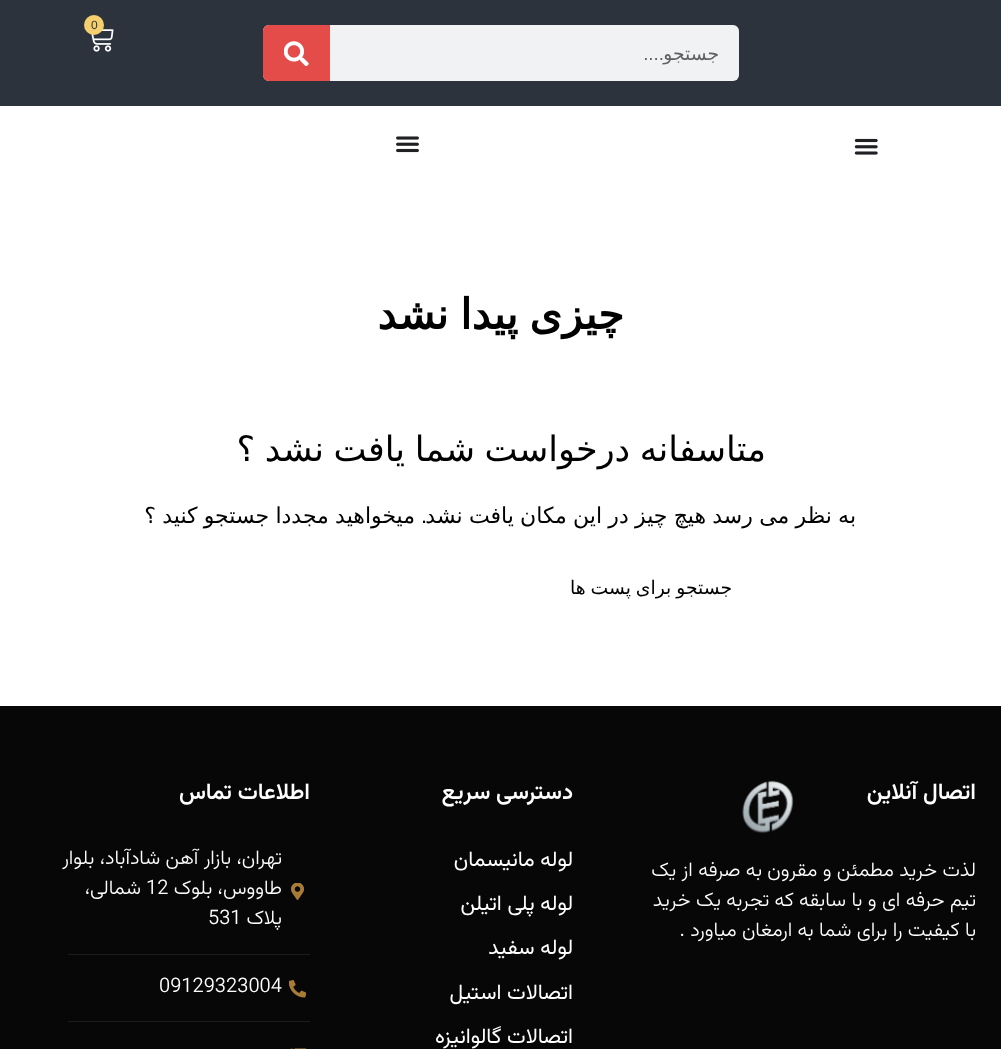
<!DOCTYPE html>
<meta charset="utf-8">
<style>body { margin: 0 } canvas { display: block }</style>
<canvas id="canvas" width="1001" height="1049"></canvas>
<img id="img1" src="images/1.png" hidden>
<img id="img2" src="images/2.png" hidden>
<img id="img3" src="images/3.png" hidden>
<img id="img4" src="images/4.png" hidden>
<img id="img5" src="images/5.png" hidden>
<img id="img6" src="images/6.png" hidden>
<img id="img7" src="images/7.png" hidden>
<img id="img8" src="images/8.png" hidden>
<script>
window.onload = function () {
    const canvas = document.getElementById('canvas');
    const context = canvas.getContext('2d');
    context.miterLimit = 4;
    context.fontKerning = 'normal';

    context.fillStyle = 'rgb(255, 255, 255)';
    context.fillRect(0, 0, 1001, 1049);
    context.fillStyle = 'rgb(45, 51, 61)';
    context.fillRect(0, 0, 1001, 106);
    context.drawImage(document.getElementById('img1'), 91, 29, 23, 23);
    context.fillStyle = 'rgb(245, 206, 109)';
    context.beginPath();
    context.arc(94, 25, 10, 0, 2 * Math.PI);
    context.fill();
    context.fillStyle = 'rgb(241, 242, 243)';
    context.beginPath();
    context.roundRect(263, 25, 476, 56, 6);
    context.fill();
    context.fillStyle = 'rgb(228, 76, 74)';
    context.beginPath();
    context.roundRect(263, 25, 67, 56, [6, 0, 0, 6]);
    context.fill();
    context.drawImage(document.getElementById('img2'), 284, 41, 25, 25);
    context.drawImage(document.getElementById('img3'), 854, 138, 24, 17);
    context.drawImage(document.getElementById('img4'), 396, 136, 23, 17);
    context.fillStyle = 'rgb(7, 7, 7)';
    context.fillRect(0, 706, 1001, 343);
    context.drawImage(document.getElementById('img5'), 742, 780, 52, 54);
    context.drawImage(document.getElementById('img6'), 291, 883, 13, 17);
    context.fillStyle = 'rgb(29, 29, 29)';
    context.fillRect(68, 954, 242, 1);
    context.drawImage(document.getElementById('img7'), 289, 980, 17, 18);
    context.fillRect(68, 1021, 242, 1);
    context.drawImage(document.getElementById('img8'), 290, 1048, 16, 1);
    context.font = '12px Liberation Sans';
    context.fillStyle = 'rgb(45, 51, 61)';
    context.fillText('0', 91, 29);
    context.direction = 'rtl';
    context.font = '18.75px DejaVu Sans';
    context.fillStyle = 'rgb(96, 97, 97)';
    context.fillText('جستجو', 719, 60);
    context.font = '18.75px Liberation Sans';
    context.fillText('....', 664, 60);
    context.wordSpacing = '-2px';
    context.font = 'bold 42px DejaVu Sans';
    context.fillStyle = 'rgb(0, 0, 0)';
    context.fillText('چیزی پیدا نشد', 624, 329);
    context.wordSpacing = '-1.5px';
    context.font = '35px DejaVu Sans';
    context.fillText('متاسفانه درخواست شما یافت نشد ؟', 766, 461);
    context.wordSpacing = '-0.75px';
    context.font = '22px DejaVu Sans';
    context.fillText('به نظر می رسد هیچ چیز در این مکان یافت نشد', 856, 523);
    context.wordSpacing = '0px';
    context.font = '22px Liberation Sans';
    context.fillText('.', 427, 523);
    context.wordSpacing = '-0.75px';
    context.font = '22px DejaVu Sans';
    context.fillText('میخواهید مجددا جستجو کنید ؟', 415, 523);
    context.wordSpacing = '-1px';
    context.font = '18.75px DejaVu Sans';
    context.fillText('جستجو برای پست ها', 732, 594);
    context.wordSpacing = '0px';
    context.font = '600 22.5px Vazirmatn';
    context.fillStyle = 'rgb(255, 255, 255)';
    context.fillText('اتصال آنلاین', 976, 799);
    context.font = '300 20px Vazirmatn';
    context.fillText('لذت خرید مطمئن و مقرون به صرفه از یک', 976, 876);
    context.fillText('تیم حرفه ای و با سابقه که تجربه یک خرید', 976, 906);
    context.fillText('با کیفیت را برای شما به ارمغان میاورد .', 976, 936);
    context.font = '600 22.5px Vazirmatn';
    context.fillText('دسترسی سریع', 573, 799);
    context.font = '21.25px Vazirmatn';
    context.fillText('لوله مانیسمان', 573, 866);
    context.fillText('لوله پلی اتیلن', 573, 910);
    context.fillText('لوله سفید', 573, 954);
    context.fillText('اتصالات استیل', 573, 999);
    context.fillText('اتصالات گالوانیزه', 573, 1043);
    context.font = '600 22.5px Vazirmatn';
    context.fillText('اطلاعات تماس', 310, 799);
    context.font = '300 20px Vazirmatn';
    context.fillText('تهران، بازار آهن شادآباد، بلوار', 282, 864);
    context.fillText('طاووس، بلوک', 282, 894);
    context.direction = 'ltr';
    context.fillText('12', 146, 894);
    context.direction = 'rtl';
    context.fillText('شمالی،', 141, 894);
    context.fillText('پلاک', 282, 924);
    context.direction = 'ltr';
    context.fillText('531', 208, 924);
    context.fillText('09129323004', 159, 992);
};
</script>
